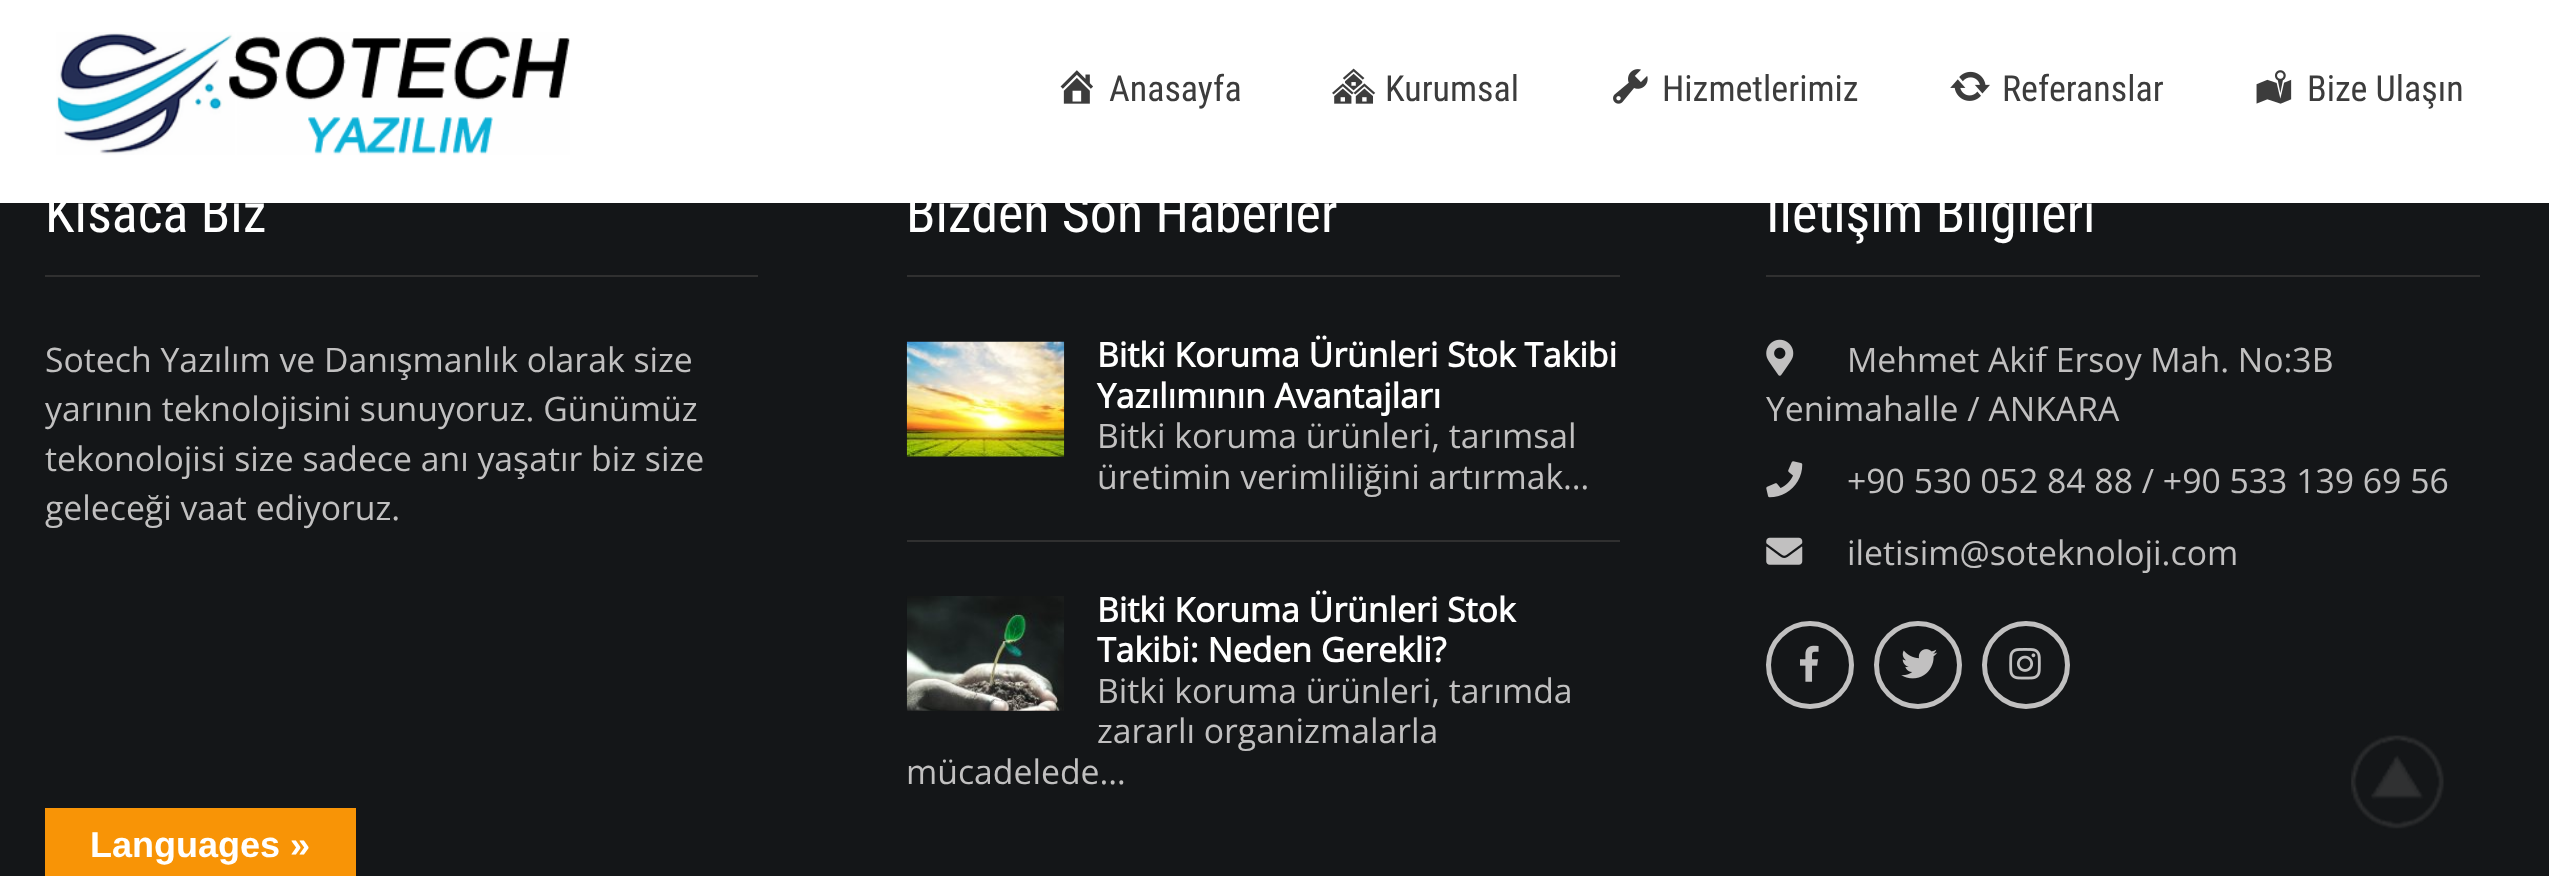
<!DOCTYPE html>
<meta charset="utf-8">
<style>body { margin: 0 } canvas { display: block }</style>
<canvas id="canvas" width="2549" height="876"></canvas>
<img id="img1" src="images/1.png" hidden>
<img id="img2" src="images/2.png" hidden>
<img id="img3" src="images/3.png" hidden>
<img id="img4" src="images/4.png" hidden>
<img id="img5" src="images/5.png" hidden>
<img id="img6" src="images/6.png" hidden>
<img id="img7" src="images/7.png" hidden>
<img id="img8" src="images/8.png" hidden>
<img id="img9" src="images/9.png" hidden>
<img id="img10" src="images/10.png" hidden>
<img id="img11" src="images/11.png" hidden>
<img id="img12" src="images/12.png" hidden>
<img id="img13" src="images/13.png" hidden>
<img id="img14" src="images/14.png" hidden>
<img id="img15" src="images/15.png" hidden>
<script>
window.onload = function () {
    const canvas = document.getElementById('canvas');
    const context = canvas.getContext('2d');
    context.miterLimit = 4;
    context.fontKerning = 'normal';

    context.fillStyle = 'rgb(20, 22, 24)';
    context.fillRect(0, 0, 2549, 876);
    context.fillStyle = 'rgb(255, 255, 255)';
    context.fillRect(0, 0, 2549, 203);
    context.drawImage(document.getElementById('img1'), 56, 32, 514, 123);
    context.drawImage(document.getElementById('img2'), 1060, 70, 33, 34);
    context.drawImage(document.getElementById('img3'), 1332, 68, 44, 36);
    context.drawImage(document.getElementById('img4'), 1613, 69, 35, 35);
    context.drawImage(document.getElementById('img5'), 1950, 71, 40, 30);
    context.drawImage(document.getElementById('img6'), 2256, 70, 36, 34);
    context.fillStyle = 'rgb(48, 48, 48)';
    context.fillRect(45, 275, 713, 2);
    context.fillRect(907, 275, 713, 2);
    context.fillRect(907, 540, 713, 2);
    context.drawImage(document.getElementById('img7'), 906, 341, 159, 116);
    context.drawImage(document.getElementById('img8'), 906, 596, 158, 115);
    context.fillRect(1766, 275, 714, 2);
    context.drawImage(document.getElementById('img9'), 1766, 339, 28, 37);
    context.drawImage(document.getElementById('img10'), 1766, 461, 37, 37);
    context.drawImage(document.getElementById('img11'), 1766, 537, 37, 28);
    context.beginPath();
    context.arc(1810, 665, 41.5, 0, 2 * Math.PI);
    context.strokeStyle = 'rgb(193, 192, 192)';
    context.lineWidth = 5;
    context.stroke();
    context.drawImage(document.getElementById('img12'), 1800, 645, 19, 37);
    context.beginPath();
    context.arc(1918, 665, 41.5, 0, 2 * Math.PI);
    context.stroke();
    context.drawImage(document.getElementById('img13'), 1901, 649, 37, 30);
    context.beginPath();
    context.arc(2026, 665, 41.5, 0, 2 * Math.PI);
    context.stroke();
    context.drawImage(document.getElementById('img14'), 2009, 648, 32, 32);
    context.drawImage(document.getElementById('img15'), 2351, 735, 93, 94);
    context.fillStyle = 'rgb(248, 148, 6)';
    context.fillRect(45, 808, 311, 68);
    context.font = '36px Roboto Condensed';
    context.fillStyle = 'rgb(60, 60, 60)';
    context.fillText('Anasayfa', 1109, 101);
    context.fillText('Kurumsal', 1385, 101);
    context.fillText('Hizmetlerimiz', 1662, 101);
    context.fillText('Referanslar', 2002, 101);
    context.fillText('Bize Ulaşın', 2307, 101);
    context.font = '54px Roboto Condensed';
    context.fillStyle = 'rgb(255, 255, 255)';
    context.fillText('Kısaca Biz', 45, 232);
    context.font = '33.75px Open Sans';
    context.fillStyle = 'rgb(193, 192, 192)';
    context.fillText('Sotech Yazılım ve Danışmanlık olarak size', 45, 372);
    context.fillText('yarının teknolojisini sunuyoruz. Günümüz', 45, 421);
    context.fillText('tekonolojisi size sadece anı yaşatır biz size', 45, 471);
    context.fillText('geleceği vaat ediyoruz.', 45, 520);
    context.font = '54px Roboto Condensed';
    context.fillStyle = 'rgb(255, 255, 255)';
    context.fillText('Bizden Son Haberler', 906, 232);
    context.font = 'bold 33.75px Open Sans';
    context.fillText('Bitki Koruma Ürünleri Stok Takibi', 1097, 367);
    context.fillText('Yazılımının Avantajları', 1097, 408);
    context.font = '33.75px Open Sans';
    context.fillStyle = 'rgb(193, 192, 192)';
    context.fillText('Bitki koruma ürünleri, tarımsal', 1097, 448);
    context.fillText('üretimin verimliliğini artırmak…', 1097, 489);
    context.font = 'bold 33.75px Open Sans';
    context.fillStyle = 'rgb(255, 255, 255)';
    context.fillText('Bitki Koruma Ürünleri Stok', 1097, 622);
    context.fillText('Takibi: Neden Gerekli?', 1097, 662);
    context.font = '33.75px Open Sans';
    context.fillStyle = 'rgb(193, 192, 192)';
    context.fillText('Bitki koruma ürünleri, tarımda', 1097, 703);
    context.fillText('zararlı organizmalarla', 1097, 743);
    context.fillText('mücadelede…', 906, 784);
    context.font = '54px Roboto Condensed';
    context.fillStyle = 'rgb(255, 255, 255)';
    context.fillText('İletişim Bilgileri', 1766, 232);
    context.font = '33.75px Open Sans';
    context.fillStyle = 'rgb(193, 192, 192)';
    context.fillText('Mehmet Akif Ersoy Mah. No:3B', 1847, 372);
    context.fillText('Yenimahalle / ANKARA', 1766, 421);
    context.fillText('+90 530 052 84 88 / +90 533 139 69 56', 1847, 493);
    context.fillText('iletisim@soteknoloji.com', 1847, 565);
    context.font = 'bold 36px Liberation Sans';
    context.fillStyle = 'rgb(255, 255, 255)';
    context.fillText('Languages »', 90, 857);
};
</script>
